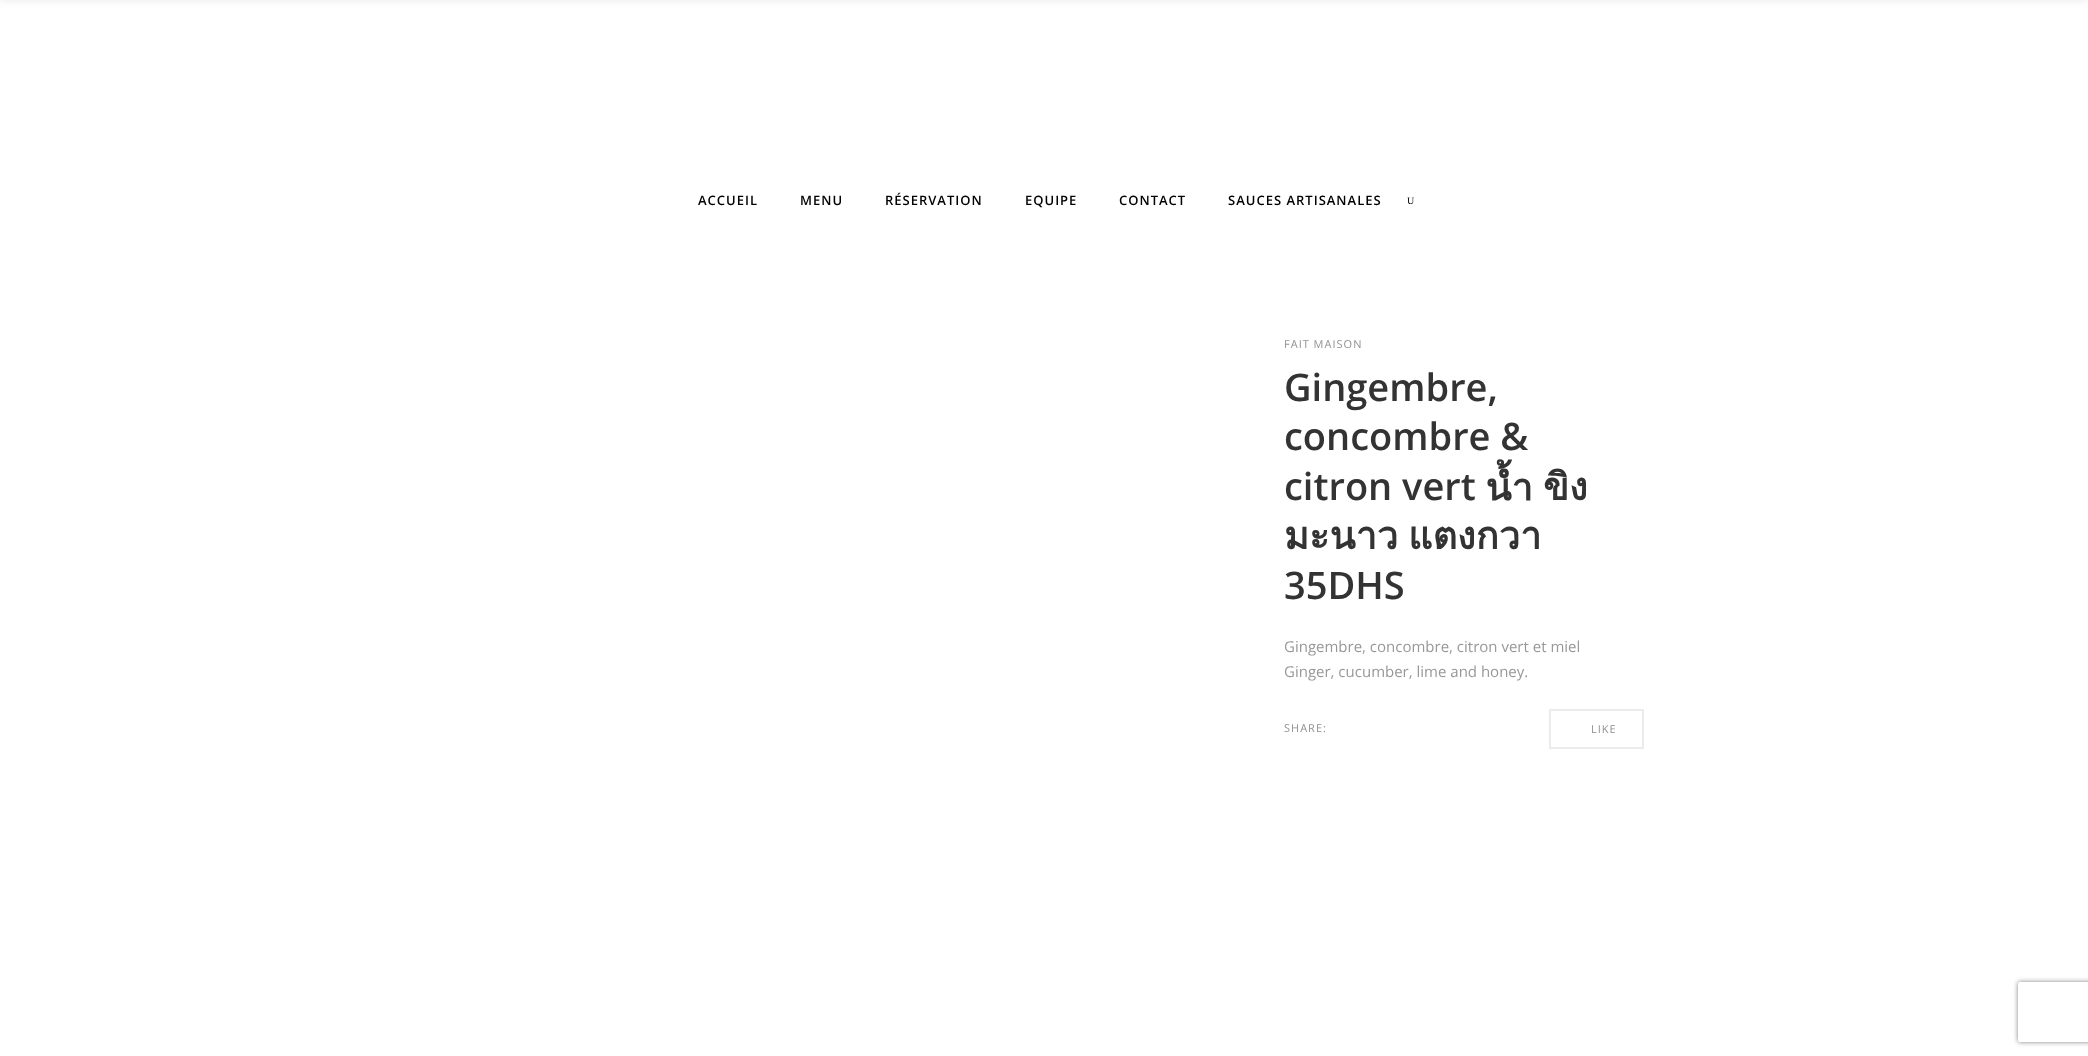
<!DOCTYPE html>
<meta charset="utf-8">
<style>body { margin: 0 } canvas { display: block }</style>
<canvas id="canvas" width="2088" height="1056"></canvas>
<script>
window.onload = function () {
    const canvas = document.getElementById('canvas');
    const context = canvas.getContext('2d');
    context.miterLimit = 4;
    context.fontKerning = 'normal';

    context.fillStyle = 'rgb(255, 255, 255)';
    context.fillRect(0, 0, 2088, 1056);
    context.fillStyle = 'rgba(0, 0, 0, 0.09)';
    context.filter = 'blur(4px)';
    context.beginPath();
    context.rect(0, -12, 2088, 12);
    context.fill();
    context.filter = 'none';
    context.strokeStyle = 'rgb(235, 235, 235)';
    context.lineWidth = 2;
    context.strokeRect(1550, 710, 93, 38);
    context.save();
    context.beginPath();
    context.moveTo(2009, 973);
    context.lineTo(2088, 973);
    context.lineTo(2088, 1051);
    context.lineTo(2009, 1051);
    context.closePath();
    context.moveTo(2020, 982);
    context.lineTo(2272, 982);
    context.bezierCurveTo(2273, 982, 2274, 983, 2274, 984);
    context.lineTo(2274, 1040);
    context.bezierCurveTo(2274, 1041, 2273, 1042, 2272, 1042);
    context.lineTo(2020, 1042);
    context.bezierCurveTo(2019, 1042, 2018, 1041, 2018, 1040);
    context.lineTo(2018, 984);
    context.bezierCurveTo(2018, 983, 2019, 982, 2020, 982);
    context.closePath();
    context.clip('evenodd');
    context.fillStyle = 'rgb(128, 128, 128)';
    context.filter = 'blur(2.5px)';
    context.beginPath();
    context.roundRect(2018, 982, 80, 60, 2);
    context.fill();
    context.filter = 'none';
    context.restore();
    context.letterSpacing = '1px';
    context.font = '600 13px Open Sans';
    context.fillStyle = 'rgb(0, 0, 0)';
    context.fillText('ACCUEIL', 698, 205);
    context.fillText('MENU', 800, 205);
    context.fillText('RÉSERVATION', 885, 205);
    context.fillText('EQUIPE', 1025, 205);
    context.fillText('CONTACT', 1119, 205);
    context.fillText('SAUCES ARTISANALES', 1228, 205);
    context.letterSpacing = '0px';
    context.font = '10px Liberation Serif';
    context.fillText('U', 1407, 204);
    context.letterSpacing = '1px';
    context.font = '11px Open Sans';
    context.fillStyle = 'rgb(144, 144, 144)';
    context.fillText('FAIT MAISON', 1284, 348);
    context.letterSpacing = '0px';
    context.font = '600 38px Open Sans';
    context.fillStyle = 'rgb(51, 51, 51)';
    context.fillText('Gingembre,', 1284, 401);
    context.fillText('concombre &', 1284, 450);
    context.fillText('citron vert', 1284, 500);
    context.font = 'bold 38px Loma';
    context.fillText('น้ำ', 1486, 500);
    context.fillText('ขิง', 1543, 500);
    context.wordSpacing = '-3px';
    context.fillText('มะนาว แตงกวา', 1284, 549);
    context.wordSpacing = '0px';
    context.font = '600 38px Open Sans';
    context.fillText('35DHS', 1284, 599);
    context.font = '15px Open Sans';
    context.fillStyle = 'rgb(152, 152, 152)';
    context.fillText('Gingembre, concombre, citron vert et miel', 1284, 652);
    context.fillText('Ginger, cucumber, lime and honey.', 1284, 677);
    context.letterSpacing = '1px';
    context.font = '11px Open Sans';
    context.fillStyle = 'rgb(144, 144, 144)';
    context.fillText('SHARE:', 1284, 732);
    context.fillText('LIKE', 1591, 733);
};
</script>
